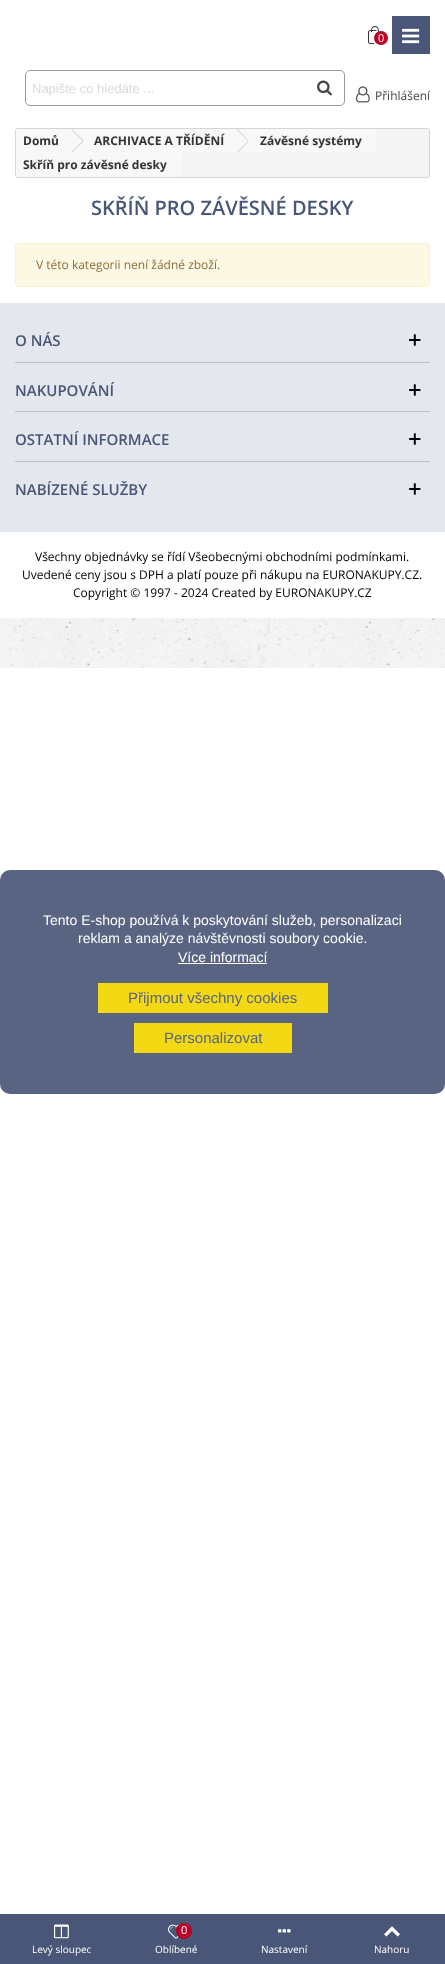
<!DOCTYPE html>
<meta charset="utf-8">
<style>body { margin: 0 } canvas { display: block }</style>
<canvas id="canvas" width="445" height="1964"></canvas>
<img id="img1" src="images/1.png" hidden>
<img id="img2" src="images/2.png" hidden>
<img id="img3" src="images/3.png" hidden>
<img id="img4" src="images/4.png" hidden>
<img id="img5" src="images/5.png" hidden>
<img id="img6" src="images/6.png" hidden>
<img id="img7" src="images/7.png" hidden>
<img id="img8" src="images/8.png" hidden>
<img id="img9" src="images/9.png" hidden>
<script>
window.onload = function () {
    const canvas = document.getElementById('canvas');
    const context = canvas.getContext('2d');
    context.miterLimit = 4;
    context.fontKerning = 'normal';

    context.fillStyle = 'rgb(255, 255, 255)';
    context.fillRect(0, 0, 445, 1964);
    context.drawImage(document.getElementById('img1'), 0, 618, 445, 50);
    context.beginPath();
    context.roundRect(368.5, 30.5, 13, 13, 1.5);
    context.strokeStyle = 'rgb(51, 51, 51)';
    context.stroke();
    context.fillStyle = 'rgb(185, 0, 38)';
    context.beginPath();
    context.arc(381, 38, 8, 0, 2 * Math.PI);
    context.fill();
    context.strokeStyle = 'rgb(255, 255, 255)';
    context.lineWidth = 2;
    context.stroke();
    context.fillStyle = 'rgb(51, 51, 51)';
    context.beginPath();
    context.moveTo(375, 26);
    context.bezierCurveTo(378.5, 26, 379, 29.5, 379, 32);
    context.lineTo(371, 32);
    context.bezierCurveTo(371, 29.5, 371.5, 26, 375, 26);
    context.closePath();
    context.moveTo(375, 27);
    context.bezierCurveTo(378, 27, 378, 30, 378, 32);
    context.lineTo(372, 32);
    context.bezierCurveTo(372, 30, 372, 27, 375, 27);
    context.closePath();
    context.fill('evenodd');
    context.fillStyle = 'rgb(73, 86, 119)';
    context.fillRect(392, 16, 38, 38);
    context.drawImage(document.getElementById('img2'), 402, 28, 18, 16);
    context.beginPath();
    context.roundRect(25.5, 70.5, 319, 35, 4.5);
    context.strokeStyle = 'rgb(153, 153, 153)';
    context.lineWidth = 1;
    context.stroke();
    context.fillStyle = 'rgb(255, 255, 255)';
    context.beginPath();
    context.roundRect(26, 71, 281, 34, [5, 0, 0, 5]);
    context.fill();
    context.drawImage(document.getElementById('img3'), 317, 80, 15, 16);
    context.drawImage(document.getElementById('img4'), 356, 86, 14, 17);
    context.fillStyle = 'rgb(244, 244, 244)';
    context.beginPath();
    context.roundRect(15.5, 128.5, 414, 49, 2.5);
    context.fill();
    context.strokeStyle = 'rgb(214, 212, 212)';
    context.stroke();
    context.fillStyle = 'rgb(248, 248, 248)';
    context.beginPath();
    context.roundRect(16, 129, 58, 24, [2, 0, 0, 0]);
    context.fill();
    context.fillRect(74, 129, 302, 24);
    context.fillStyle = 'rgb(214, 212, 212)';
    context.beginPath();
    context.moveTo(72, 129);
    context.lineTo(83.5, 140.5);
    context.lineTo(82.5, 141);
    context.lineTo(71, 129.5);
    context.closePath();
    context.moveTo(82.5, 141);
    context.lineTo(83.5, 141.5);
    context.lineTo(72, 153);
    context.lineTo(71, 152.5);
    context.closePath();
    context.fill();
    context.beginPath();
    context.moveTo(237.5, 129);
    context.lineTo(248.5, 140.5);
    context.lineTo(248, 141);
    context.lineTo(236.5, 129.5);
    context.closePath();
    context.moveTo(248, 141);
    context.lineTo(248.5, 141.5);
    context.lineTo(237.5, 153);
    context.lineTo(236.5, 152.5);
    context.closePath();
    context.fill();
    context.fillStyle = 'rgb(248, 248, 248)';
    context.beginPath();
    context.roundRect(16, 153, 166, 24, [0, 0, 0, 2]);
    context.fill();
    context.fillStyle = 'rgb(252, 248, 227)';
    context.beginPath();
    context.roundRect(15.5, 243.5, 414, 43, 3.5);
    context.fill();
    context.strokeStyle = 'rgb(250, 242, 204)';
    context.stroke();
    context.fillStyle = 'rgb(228, 231, 238)';
    context.fillRect(0, 303, 445, 229);
    context.fillStyle = 'rgb(192, 192, 192)';
    context.fillRect(15, 362, 415, 1);
    context.drawImage(document.getElementById('img5'), 409, 334, 12, 12);
    context.fillRect(15, 411, 415, 1);
    context.drawImage(document.getElementById('img5'), 409, 384, 12, 12);
    context.fillRect(15, 461, 415, 1);
    context.drawImage(document.getElementById('img5'), 409, 433, 12, 12);
    context.drawImage(document.getElementById('img5'), 409, 483, 12, 12);
    context.fillStyle = 'rgb(73, 86, 119)';
    context.fillRect(0, 1914, 445, 50);
    context.drawImage(document.getElementById('img6'), 54, 1924, 15, 15);
    context.drawImage(document.getElementById('img7'), 168, 1924, 13, 15);
    context.fillStyle = 'rgb(185, 0, 38)';
    context.beginPath();
    context.arc(184, 1931, 8, 0, 2 * Math.PI);
    context.fill();
    context.drawImage(document.getElementById('img8'), 278, 1929, 13, 4);
    context.drawImage(document.getElementById('img9'), 384, 1926, 16, 11);
    context.fillStyle = 'rgb(88, 100, 130)';
    context.beginPath();
    context.roundRect(0, 870, 445, 224, 10);
    context.fill();
    context.fillStyle = 'rgb(255, 255, 255)';
    context.fillRect(178, 963, 89, 1);
    context.fillStyle = 'rgb(242, 217, 20)';
    context.fillRect(98, 983, 230, 30);
    context.fillRect(134, 1023, 158, 30);
    context.font = '11px Open Sans';
    context.fillStyle = 'rgb(255, 255, 255)';
    context.fillText('0', 378, 42);
    context.font = '13px Liberation Sans';
    context.fillStyle = 'rgb(218, 218, 218)';
    context.fillText('Napište co hledáte ...', 32, 93);
    context.font = '12px Open Sans';
    context.fillStyle = 'rgb(68, 68, 68)';
    context.fillText('Přihlášení', 375, 100);
    context.font = 'bold 12px Open Sans';
    context.fillStyle = 'rgb(51, 51, 51)';
    context.fillText('Domů', 23, 145);
    context.fillText('ARCHIVACE A TŘÍDĚNÍ', 94, 145);
    context.fillText('Závěsné systémy', 260, 145);
    context.fillText('Skříň pro závěsné desky', 23, 169);
    context.font = '600 20px Open Sans';
    context.fillStyle = 'rgb(73, 86, 119)';
    context.fillText('SKŘÍŇ PRO ZÁVĚSNÉ DESKY', 91, 215);
    context.font = '12px Open Sans';
    context.fillStyle = 'rgb(138, 109, 59)';
    context.fillText('V této kategorii není žádné zboží.', 36, 269);
    context.font = '600 15px Open Sans';
    context.fillStyle = 'rgb(73, 86, 119)';
    context.fillText('O NÁS', 15, 346);
    context.fillText('NAKUPOVÁNÍ', 15, 396);
    context.fillText('OSTATNÍ INFORMACE', 15, 445);
    context.fillText('NABÍZENÉ SLUŽBY', 15, 495);
    context.font = '12px Open Sans';
    context.fillStyle = 'rgb(0, 0, 0)';
    context.fillText('Všechny objednávky se řídí Všeobecnými obchodními podmínkami.', 35, 561);
    context.fillText('Uvedené ceny jsou s DPH a platí pouze při nákupu na EURONAKUPY.CZ.', 22, 579);
    context.fillText('Copyright © 1997 - 2024 Created by EURONAKUPY.CZ', 73, 597);
    context.font = '10px Open Sans';
    context.fillStyle = 'rgb(255, 255, 255)';
    context.fillText('Levý sloupec', 32, 1953);
    context.font = '11px Open Sans';
    context.fillText('0', 181, 1934);
    context.font = '10px Open Sans';
    context.fillText('Oblíbené', 155, 1953);
    context.fillText('Nastavení', 261, 1953);
    context.fillText('Nahoru', 374, 1953);
    context.font = '14px Liberation Sans';
    context.fillText('Tento E-shop používá k poskytování služeb, personalizaci', 43, 925);
    context.fillText('reklam a analýze návštěvnosti soubory cookie.', 78, 943);
    context.fillText('Více informací', 178, 962);
    context.font = '15px Liberation Sans';
    context.fillStyle = 'rgb(88, 100, 130)';
    context.fillText('Přijmout všechny cookies', 128, 1003);
    context.fillText('Personalizovat', 164, 1043);
};
</script>
